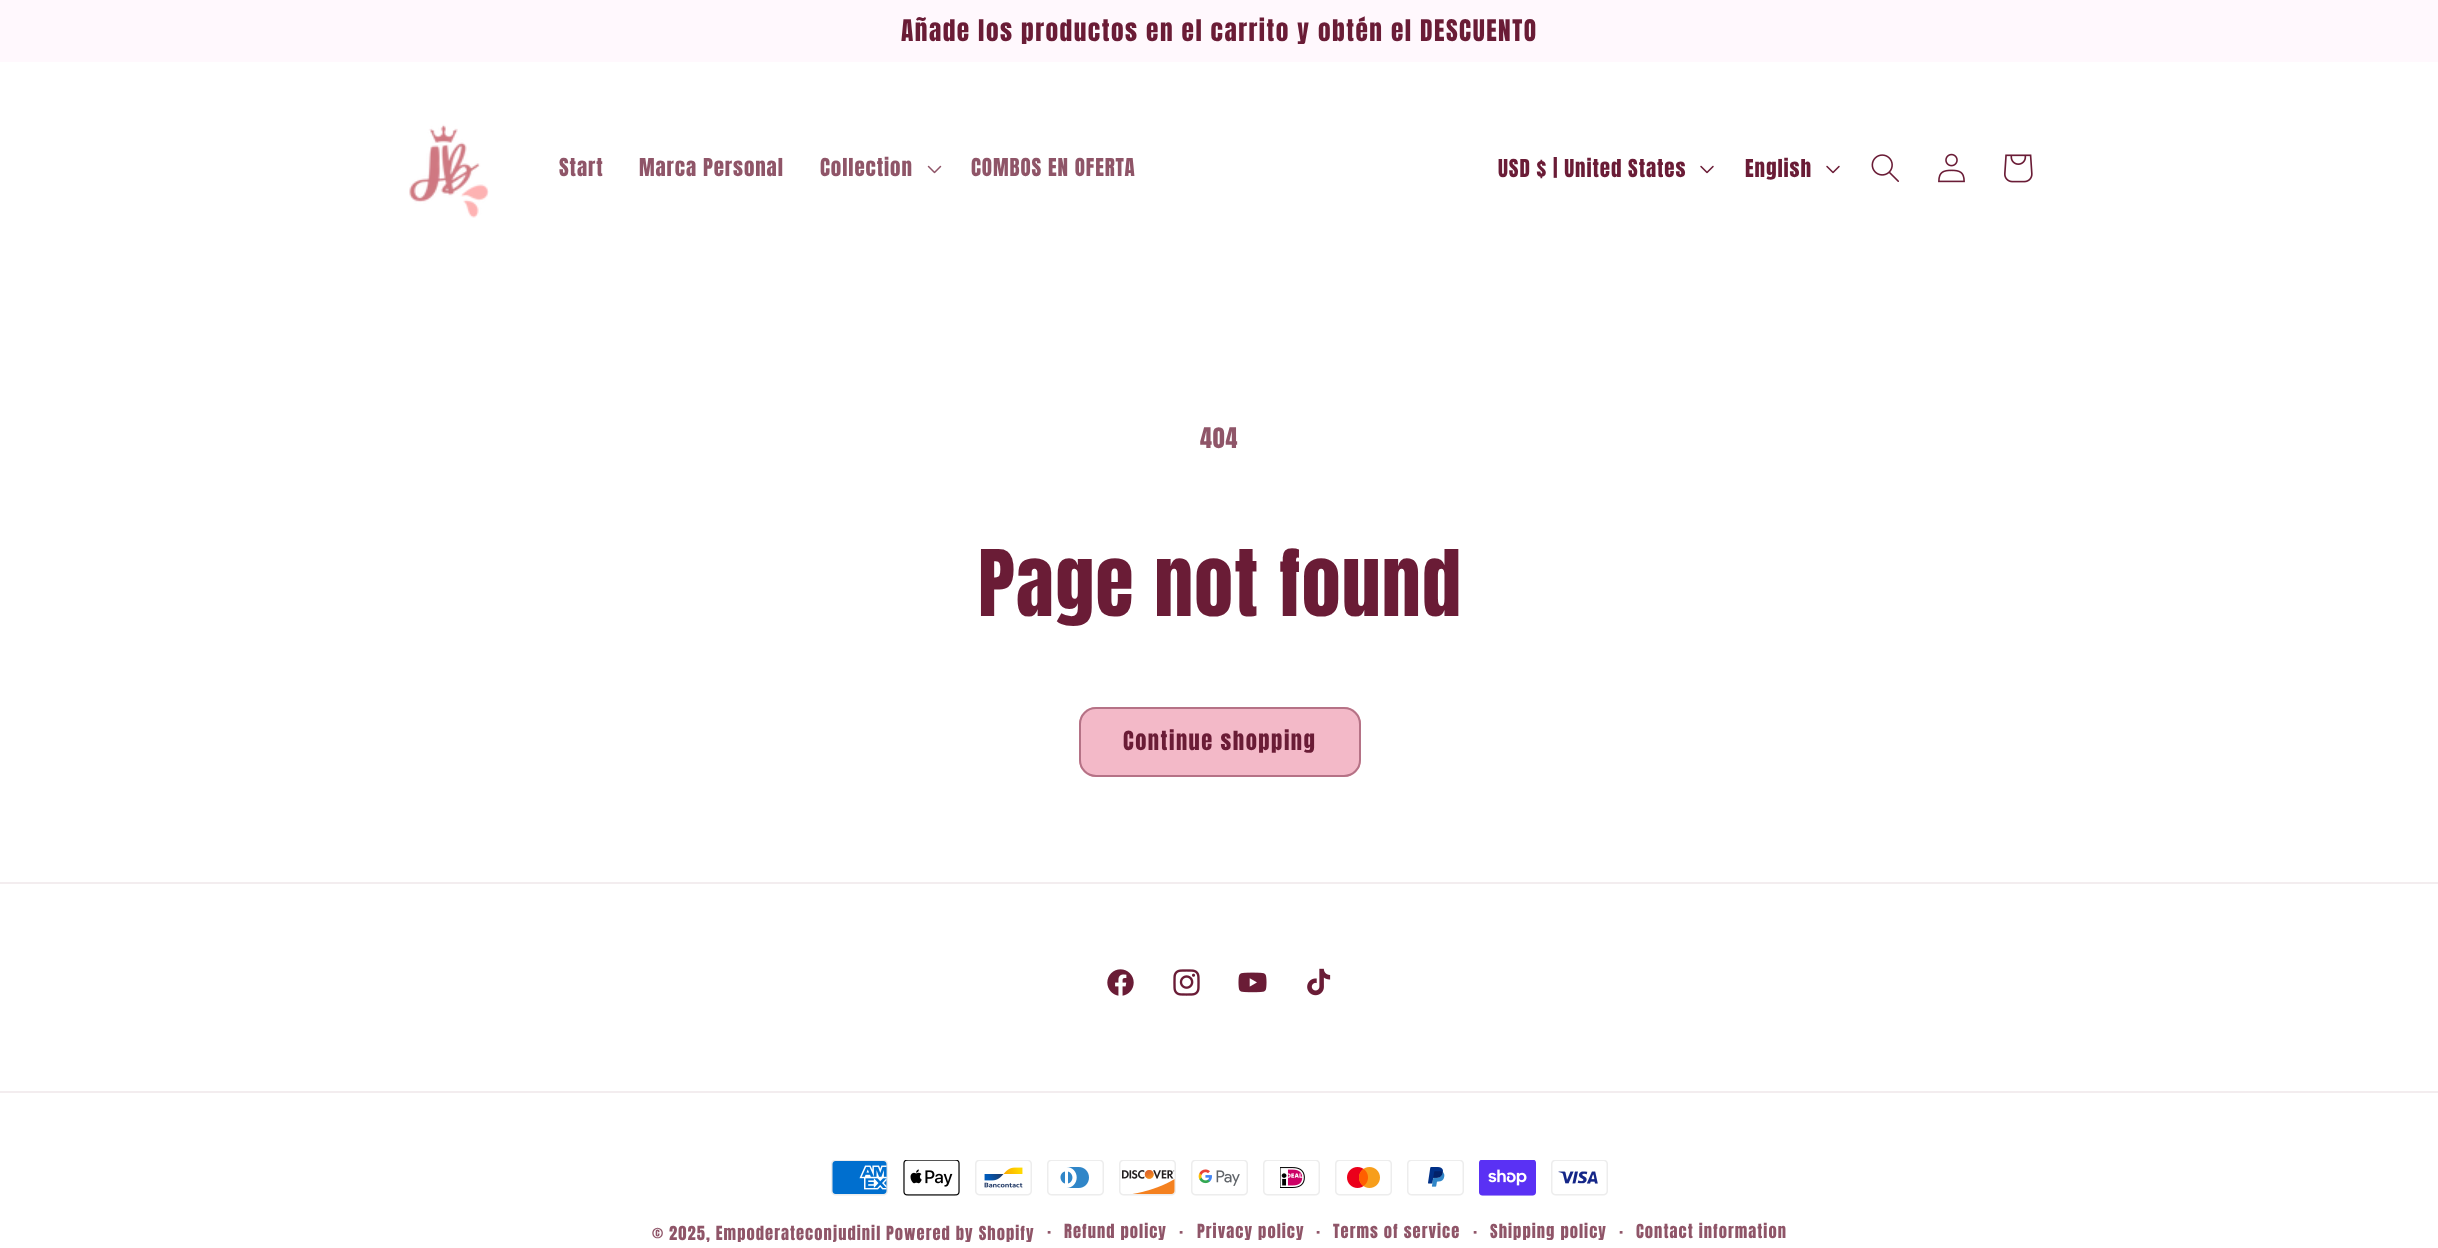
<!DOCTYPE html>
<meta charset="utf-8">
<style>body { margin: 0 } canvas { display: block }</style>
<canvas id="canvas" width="2438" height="1248"></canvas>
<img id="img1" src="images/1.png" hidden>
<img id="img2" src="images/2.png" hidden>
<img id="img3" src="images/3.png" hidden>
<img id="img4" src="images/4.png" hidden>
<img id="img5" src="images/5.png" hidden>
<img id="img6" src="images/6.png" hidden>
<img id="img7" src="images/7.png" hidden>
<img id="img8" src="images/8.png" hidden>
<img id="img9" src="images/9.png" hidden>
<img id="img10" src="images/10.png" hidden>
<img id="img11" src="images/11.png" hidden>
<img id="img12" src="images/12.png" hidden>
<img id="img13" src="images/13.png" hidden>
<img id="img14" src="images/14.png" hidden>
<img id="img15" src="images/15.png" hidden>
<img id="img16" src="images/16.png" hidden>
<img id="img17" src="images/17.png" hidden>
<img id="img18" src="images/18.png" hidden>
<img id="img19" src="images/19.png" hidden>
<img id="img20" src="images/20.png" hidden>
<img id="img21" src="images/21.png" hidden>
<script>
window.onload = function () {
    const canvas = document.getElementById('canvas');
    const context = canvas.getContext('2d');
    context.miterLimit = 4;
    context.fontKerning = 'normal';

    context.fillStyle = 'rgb(255, 255, 255)';
    context.fillRect(0, 0, 2438, 1248);
    context.fillStyle = 'rgb(255, 248, 253)';
    context.fillRect(0, 0, 2438, 62);
    context.drawImage(document.getElementById('img1'), 409, 124, 80, 94);
    context.drawImage(document.getElementById('img2'), 927, 165, 15, 9);
    context.drawImage(document.getElementById('img3'), 1700, 165, 14, 9);
    context.drawImage(document.getElementById('img3'), 1826, 165, 14, 9);
    context.drawImage(document.getElementById('img4'), 1871, 154, 28, 28);
    context.drawImage(document.getElementById('img5'), 1938, 153, 27, 30);
    context.drawImage(document.getElementById('img6'), 2004, 154, 29, 29);
    context.fillStyle = 'rgb(243, 185, 200)';
    context.beginPath();
    context.roundRect(1079, 707, 282, 70, 17);
    context.fill();
    context.beginPath();
    context.roundRect(1080, 708, 280, 68, 16);
    context.strokeStyle = 'rgb(243, 185, 200)';
    context.lineWidth = 2;
    context.stroke();
    context.beginPath();
    context.roundRect(1080, 708, 280, 68, 16);
    context.strokeStyle = 'rgba(106, 28, 54, 0.45)';
    context.stroke();
    context.fillStyle = 'rgb(243, 237, 239)';
    context.fillRect(0, 882, 2438, 2);
    context.drawImage(document.getElementById('img7'), 1107, 969, 27, 27);
    context.drawImage(document.getElementById('img8'), 1173, 969, 27, 27);
    context.drawImage(document.getElementById('img9'), 1238, 972, 29, 21);
    context.drawImage(document.getElementById('img10'), 1307, 968, 24, 28);
    context.fillRect(0, 1091, 2438, 2);
    context.drawImage(document.getElementById('img11'), 831, 1160, 57, 36);
    context.drawImage(document.getElementById('img12'), 903, 1160, 57, 36);
    context.drawImage(document.getElementById('img13'), 975, 1160, 57, 36);
    context.drawImage(document.getElementById('img14'), 1047, 1160, 57, 36);
    context.drawImage(document.getElementById('img15'), 1119, 1160, 57, 36);
    context.drawImage(document.getElementById('img16'), 1191, 1160, 57, 36);
    context.drawImage(document.getElementById('img17'), 1263, 1160, 57, 36);
    context.drawImage(document.getElementById('img18'), 1335, 1160, 57, 36);
    context.drawImage(document.getElementById('img19'), 1407, 1160, 57, 36);
    context.drawImage(document.getElementById('img20'), 1479, 1160, 57, 36);
    context.drawImage(document.getElementById('img21'), 1551, 1160, 57, 36);
    context.letterSpacing = '1.5px';
    context.font = '25.35px Anton';
    context.fillStyle = 'rgb(106, 28, 54)';
    context.fillText('Añade los productos en el carrito y obtén el DESCUENTO', 901, 41);
    context.letterSpacing = '0.9px';
    context.font = '21px Anton';
    context.fillStyle = 'rgb(143, 85, 104)';
    context.fillText('Start', 559, 176);
    context.fillText('Marca Personal', 639, 176);
    context.fillText('Collection', 820, 176);
    context.fillText('COMBOS EN OFERTA', 971, 176);
    context.fillStyle = 'rgb(106, 28, 54)';
    context.fillText('USD $ | United States', 1498, 177);
    context.fillText('English', 1745, 177);
    context.font = '24px Anton';
    context.fillStyle = 'rgb(143, 85, 104)';
    context.fillText('404', 1200, 448);
    context.letterSpacing = '1.2px';
    context.font = '78px Anton';
    context.fillStyle = 'rgb(106, 28, 54)';
    context.fillText('Page not found', 978, 616);
    context.letterSpacing = '1.5px';
    context.font = '22.5px Anton';
    context.fillText('Continue shopping', 1123, 750);
    context.letterSpacing = '1.05px';
    context.font = '16.5px Anton';
    context.fillStyle = 'rgb(143, 85, 104)';
    context.fillText('© 2025, Empoderateconjudinil', 652, 1240);
    context.fillText('Powered by Shopify', 886, 1240);
    context.font = '18px Anton';
    context.fillText('·', 1047, 1240);
    context.font = '16.5px Anton';
    context.fillText('Refund policy', 1064, 1238);
    context.font = '18px Anton';
    context.fillText('·', 1179, 1240);
    context.font = '16.5px Anton';
    context.fillText('Privacy policy', 1197, 1238);
    context.font = '18px Anton';
    context.fillText('·', 1316, 1240);
    context.font = '16.5px Anton';
    context.fillText('Terms of service', 1333, 1238);
    context.font = '18px Anton';
    context.fillText('·', 1473, 1240);
    context.font = '16.5px Anton';
    context.fillText('Shipping policy', 1490, 1238);
    context.font = '18px Anton';
    context.fillText('·', 1619, 1240);
    context.font = '16.5px Anton';
    context.fillText('Contact information', 1636, 1238);
};
</script>
